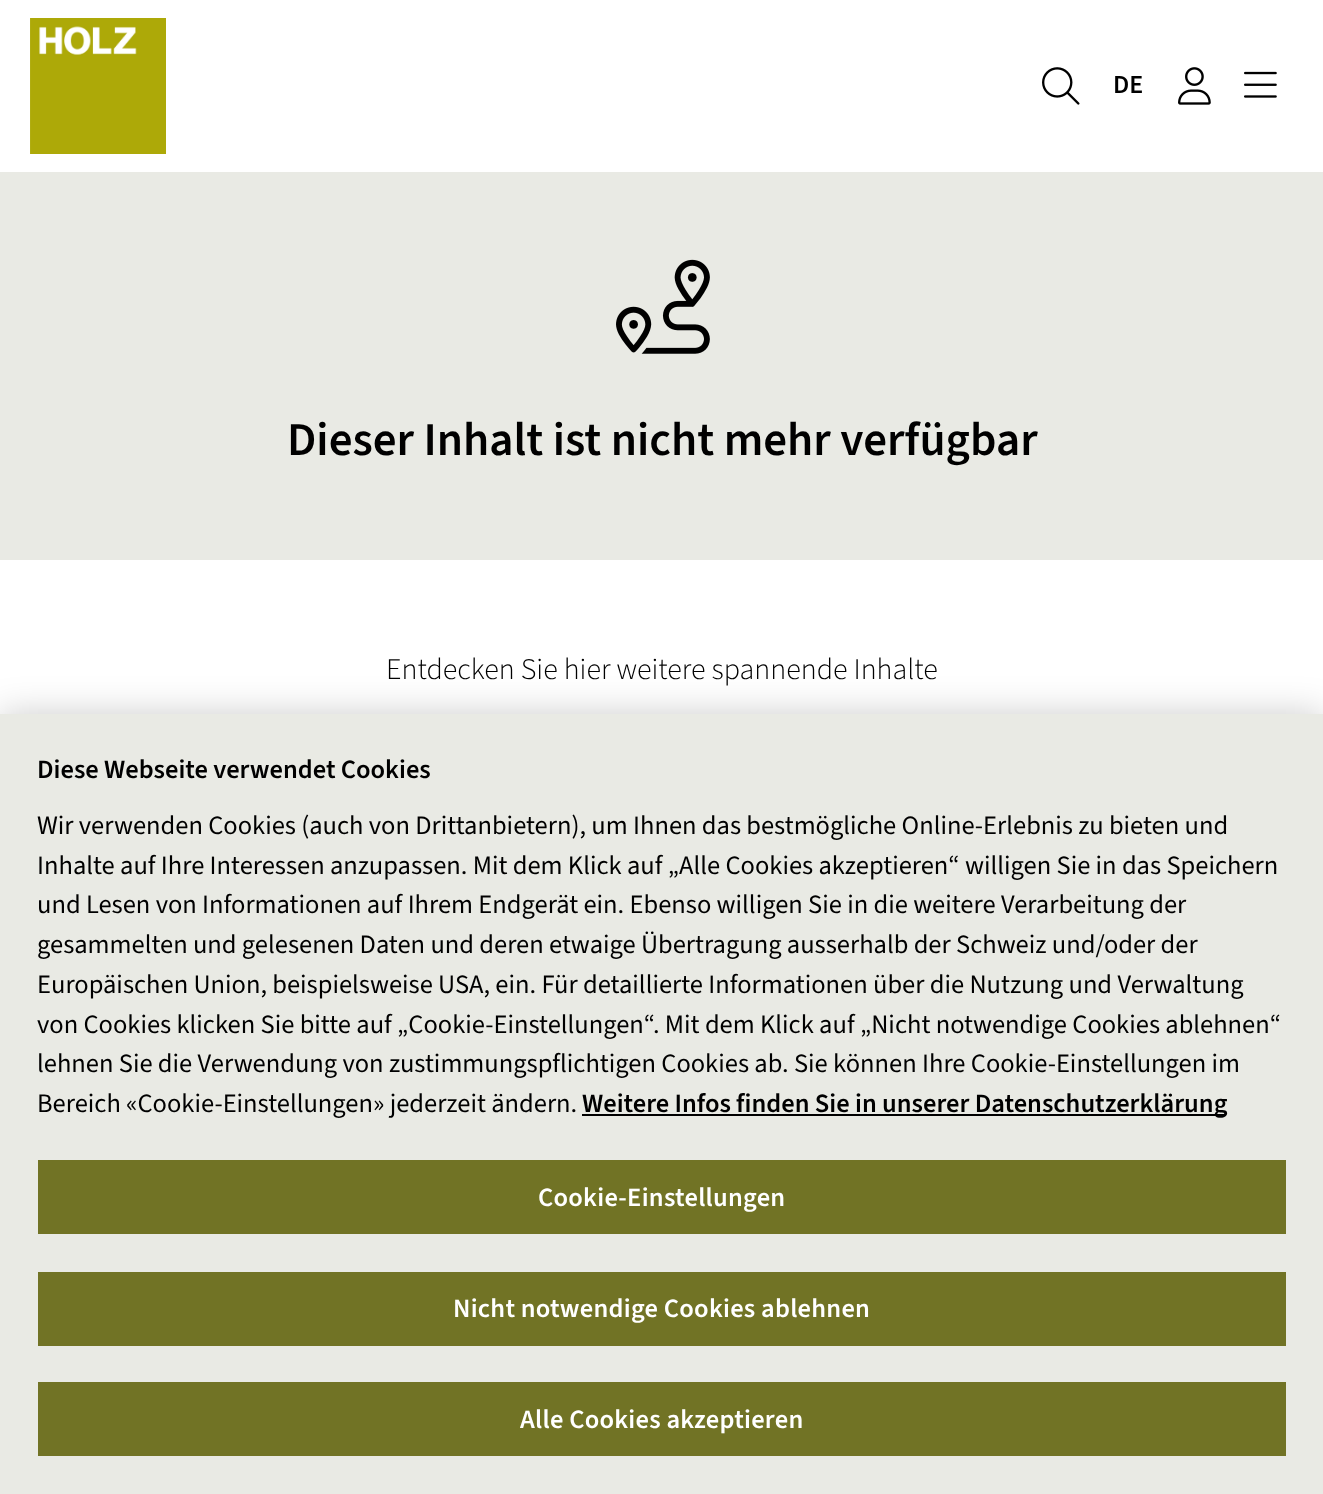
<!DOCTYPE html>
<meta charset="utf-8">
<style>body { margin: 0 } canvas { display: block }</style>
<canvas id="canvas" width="1323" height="1494"></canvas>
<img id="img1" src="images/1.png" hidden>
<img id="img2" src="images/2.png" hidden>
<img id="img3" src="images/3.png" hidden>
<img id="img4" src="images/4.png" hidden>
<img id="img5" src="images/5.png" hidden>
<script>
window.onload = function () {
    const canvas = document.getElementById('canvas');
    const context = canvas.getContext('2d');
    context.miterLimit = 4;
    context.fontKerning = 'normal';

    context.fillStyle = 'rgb(255, 255, 255)';
    context.fillRect(0, 0, 1323, 1494);
    context.drawImage(document.getElementById('img1'), 30, 18, 136, 136);
    context.drawImage(document.getElementById('img2'), 1042, 67, 38, 38);
    context.drawImage(document.getElementById('img3'), 1178, 67, 33, 38);
    context.drawImage(document.getElementById('img4'), 1244, 71, 33, 27);
    context.fillStyle = 'rgb(233, 234, 228)';
    context.fillRect(0, 172, 1323, 388);
    context.drawImage(document.getElementById('img5'), 616, 259, 94, 95);
    context.fillStyle = 'rgba(0, 0, 0, 0.2)';
    context.filter = 'blur(18px)';
    context.beginPath();
    context.rect(0, 714, 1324, 780);
    context.fill();
    context.filter = 'none';
    context.fillStyle = 'rgb(233, 234, 228)';
    context.fillRect(0, 714, 1323, 780);
    context.fillStyle = 'rgb(0, 0, 0)';
    context.fillRect(582, 1114, 644, 2);
    context.fillStyle = 'rgb(113, 115, 37)';
    context.fillRect(38, 1160, 1248, 74);
    context.fillRect(38, 1272, 1248, 74);
    context.fillRect(38, 1382, 1248, 74);
    context.font = '200 26px "Source Sans 3"';
    context.fillStyle = 'rgb(0, 0, 0)';
    context.fillText('DE', 1113, 93);
    context.font = '200 47px "Source Sans 3"';
    context.fillText('Dieser Inhalt ist nicht mehr verfügbar', 287, 455);
    context.font = '200 30px "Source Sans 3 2"';
    context.fillText('Entdecken Sie hier weitere spannende Inhalte', 386, 679);
    context.font = '200 26.5px "Source Sans 3"';
    context.fillText('Diese Webseite verwendet Cookies', 37, 778);
    context.font = '200 26.5px "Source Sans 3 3"';
    context.fillText('Wir verwenden Cookies (auch von Drittanbietern), um Ihnen das bestmögliche Online-Erlebnis zu bieten und', 37, 834);
    context.fillText('Inhalte auf Ihre Interessen anzupassen. Mit dem Klick auf „Alle Cookies akzeptieren“ willigen Sie in das Speichern', 37, 874);
    context.fillText('und Lesen von Informationen auf Ihrem Endgerät ein. Ebenso willigen Sie in die weitere Verarbeitung der', 37, 913);
    context.fillText('gesammelten und gelesenen Daten und deren etwaige Übertragung ausserhalb der Schweiz und/oder der', 37, 953);
    context.fillText('Europäischen Union, beispielsweise USA, ein. Für detaillierte Informationen über die Nutzung und Verwaltung', 37, 993);
    context.fillText('von Cookies klicken Sie bitte auf „Cookie-Einstellungen“. Mit dem Klick auf „Nicht notwendige Cookies ablehnen“', 37, 1033);
    context.fillText('lehnen Sie die Verwendung von zustimmungspflichtigen Cookies ab. Sie können Ihre Cookie-Einstellungen im', 37, 1072);
    context.fillText('Bereich «Cookie-Einstellungen» jederzeit ändern.', 37, 1112);
    context.font = '200 26.5px "Source Sans 3"';
    context.fillText('Weitere Infos finden Sie in unserer Datenschutzerklärung', 582, 1112);
    context.letterSpacing = '0.25px';
    context.fillStyle = 'rgb(255, 255, 255)';
    context.fillText('Cookie-Einstellungen', 538, 1206);
    context.fillText('Nicht notwendige Cookies ablehnen', 453, 1317);
    context.fillText('Alle Cookies akzeptieren', 520, 1428);
};
</script>
